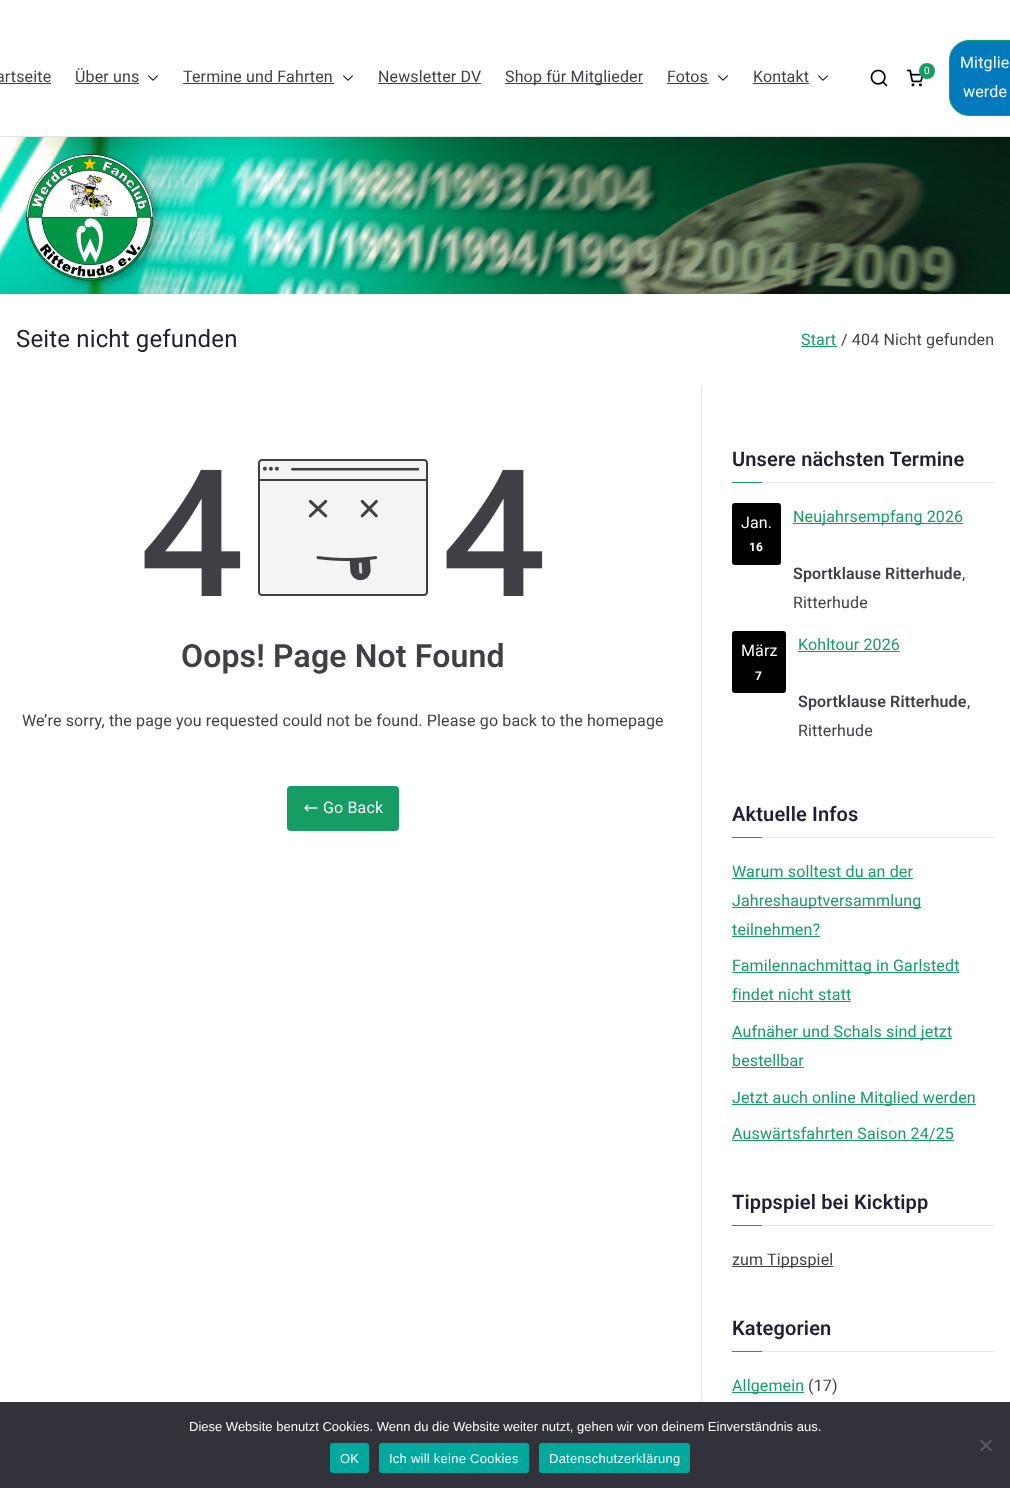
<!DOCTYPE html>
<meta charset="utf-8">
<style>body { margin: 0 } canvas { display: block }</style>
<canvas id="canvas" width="1010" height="1488"></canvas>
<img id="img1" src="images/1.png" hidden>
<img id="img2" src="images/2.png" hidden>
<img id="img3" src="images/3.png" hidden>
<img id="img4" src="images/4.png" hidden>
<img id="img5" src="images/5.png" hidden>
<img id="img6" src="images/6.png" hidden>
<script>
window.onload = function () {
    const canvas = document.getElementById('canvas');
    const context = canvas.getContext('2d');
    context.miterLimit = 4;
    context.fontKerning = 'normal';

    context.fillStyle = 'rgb(228, 228, 231)';
    context.fillRect(0, 0, 1010, 1488);
    context.fillStyle = 'rgb(255, 255, 255)';
    context.fillRect(0, 0, 1010, 136);
    context.fillStyle = 'rgb(63, 63, 70)';
    context.fillRect(0, 83, 51, 1);
    context.fillRect(75, 83, 64, 1);
    context.drawImage(document.getElementById('img1'), 148, 75, 10, 6);
    context.fillRect(183, 83, 151, 1);
    context.drawImage(document.getElementById('img1'), 343, 75, 10, 6);
    context.fillRect(378, 83, 103, 1);
    context.fillRect(505, 83, 138, 1);
    context.fillRect(667, 83, 42, 1);
    context.drawImage(document.getElementById('img1'), 718, 75, 10, 6);
    context.fillRect(753, 83, 56, 1);
    context.drawImage(document.getElementById('img1'), 818, 75, 10, 6);
    context.drawImage(document.getElementById('img2'), 870, 69, 18, 18);
    context.drawImage(document.getElementById('img3'), 906, 69, 17, 18);
    context.fillStyle = 'rgb(21, 157, 100)';
    context.beginPath();
    context.arc(927, 71, 8, 0, 2 * Math.PI);
    context.fill();
    context.fillStyle = 'rgb(2, 122, 187)';
    context.beginPath();
    context.roundRect(949.5, 40.5, 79, 75, 19.5);
    context.fill();
    context.strokeStyle = 'rgb(21, 157, 100)';
    context.stroke();
    context.drawImage(document.getElementById('img4'), 0, 137, 1010, 157);
    context.fillStyle = 'rgb(255, 255, 255)';
    context.fillRect(0, 294, 1010, 1108);
    context.fillStyle = 'rgb(21, 157, 100)';
    context.fillRect(801, 346, 36, 1);
    context.drawImage(document.getElementById('img5'), 144, 459, 399, 137);
    context.beginPath();
    context.roundRect(287, 786, 112, 45, 4);
    context.fill();
    context.drawImage(document.getElementById('img6'), 304, 804, 14, 8);
    context.fillStyle = 'rgb(228, 228, 231)';
    context.fillRect(701, 386, 1, 1016);
    context.fillRect(762, 482, 232, 1);
    context.fillStyle = 'rgb(21, 157, 100)';
    context.fillRect(732, 482, 30, 1);
    context.fillStyle = 'rgb(0, 0, 0)';
    context.beginPath();
    context.roundRect(732, 503, 49, 62, 3);
    context.fill();
    context.fillStyle = 'rgb(21, 157, 100)';
    context.fillRect(793, 523, 170, 1);
    context.fillStyle = 'rgb(0, 0, 0)';
    context.beginPath();
    context.roundRect(732, 631, 54, 62, 3);
    context.fill();
    context.fillStyle = 'rgb(21, 157, 100)';
    context.fillRect(798, 651, 102, 1);
    context.fillStyle = 'rgb(228, 228, 231)';
    context.fillRect(762, 837, 232, 1);
    context.fillStyle = 'rgb(21, 157, 100)';
    context.fillRect(732, 837, 30, 1);
    context.fillRect(732, 878, 181, 1);
    context.fillRect(732, 907, 189, 1);
    context.fillRect(732, 936, 88, 1);
    context.fillRect(732, 972, 227, 1);
    context.fillRect(732, 1001, 119, 1);
    context.fillRect(732, 1038, 220, 1);
    context.fillRect(732, 1067, 72, 1);
    context.fillRect(732, 1104, 244, 1);
    context.fillRect(732, 1140, 222, 1);
    context.fillStyle = 'rgb(228, 228, 231)';
    context.fillRect(762, 1225, 232, 1);
    context.fillStyle = 'rgb(21, 157, 100)';
    context.fillRect(732, 1225, 30, 1);
    context.fillStyle = 'rgb(63, 63, 70)';
    context.fillRect(732, 1266, 101, 1);
    context.fillStyle = 'rgb(228, 228, 231)';
    context.fillRect(762, 1351, 232, 1);
    context.fillStyle = 'rgb(21, 157, 100)';
    context.fillRect(732, 1351, 30, 1);
    context.fillRect(732, 1392, 72, 1);
    context.fillStyle = 'rgb(50, 50, 58)';
    context.fillRect(0, 1402, 1010, 86);
    context.fillStyle = 'rgb(89, 89, 93)';
    context.beginPath();
    context.moveTo(990.5, 1439.5);
    context.lineTo(992, 1441);
    context.lineTo(981.5, 1451.5);
    context.lineTo(980, 1450);
    context.closePath();
    context.fill();
    context.beginPath();
    context.moveTo(980, 1441);
    context.lineTo(981.5, 1439.5);
    context.lineTo(992, 1450);
    context.lineTo(990.5, 1451.5);
    context.closePath();
    context.fill();
    context.fillStyle = 'rgb(0, 169, 157)';
    context.beginPath();
    context.roundRect(330, 1443, 39, 30, 3);
    context.fill();
    context.beginPath();
    context.roundRect(379, 1443, 150, 30, 3);
    context.fill();
    context.beginPath();
    context.roundRect(539, 1443, 151, 30, 3);
    context.fill();
    context.letterSpacing = '0.15px';
    context.font = '16px Roboto';
    context.fillStyle = 'rgb(63, 63, 70)';
    context.fillText('artseite', -4, 82);
    context.fillText('Über uns', 75, 82);
    context.fillText('Termine und Fahrten', 183, 82);
    context.fillText('Newsletter DV', 378, 82);
    context.fillText('Shop für Mitglieder', 505, 82);
    context.fillText('Fotos', 667, 82);
    context.fillText('Kontakt', 753, 82);
    context.font = '10px Roboto';
    context.fillStyle = 'rgb(250, 250, 250)';
    context.fillText('0', 924, 74);
    context.font = '16px Roboto';
    context.fillText('Mitglie', 960, 68);
    context.fillText('werde', 963, 97);
    context.font = '24px Roboto';
    context.fillStyle = 'rgb(31, 31, 50)';
    context.fillText('Seite nicht gefunden', 16, 347);
    context.font = '16px Roboto';
    context.fillStyle = 'rgb(21, 157, 100)';
    context.fillText('Start', 801, 345);
    context.fillStyle = 'rgb(63, 63, 70)';
    context.fillText('/ 404 Nicht gefunden', 841, 345);
    context.font = '600 32px Roboto';
    context.fillText('Oops! Page Not Found', 181, 667);
    context.font = '16px Roboto';
    context.fillText('We’re sorry, the page you requested could not be found. Please go back to the homepage', 22, 726);
    context.fillStyle = 'rgb(250, 250, 250)';
    context.fillText('Go Back', 323, 813);
    context.font = '600 20px Roboto';
    context.fillStyle = 'rgb(31, 31, 50)';
    context.fillText('Unsere nächsten Termine', 732, 466);
    context.font = '16px Roboto';
    context.fillStyle = 'rgb(250, 250, 250)';
    context.fillText('Jan.', 741, 528);
    context.font = 'bold 12px Roboto';
    context.fillText('16', 749, 551);
    context.font = '16px Roboto';
    context.fillStyle = 'rgb(21, 157, 100)';
    context.fillText('Neujahrsempfang 2026', 793, 522);
    context.font = '600 16px Roboto';
    context.fillStyle = 'rgb(63, 63, 70)';
    context.fillText('Sportklause Ritterhude', 793, 579);
    context.font = '16px Roboto';
    context.fillText(',', 962, 579);
    context.fillText('Ritterhude', 793, 608);
    context.fillStyle = 'rgb(250, 250, 250)';
    context.fillText('März', 741, 656);
    context.font = 'bold 12px Roboto';
    context.fillText('7', 755, 680);
    context.font = '16px Roboto';
    context.fillStyle = 'rgb(21, 157, 100)';
    context.fillText('Kohltour 2026', 798, 650);
    context.font = '600 16px Roboto';
    context.fillStyle = 'rgb(63, 63, 70)';
    context.fillText('Sportklause Ritterhude', 798, 707);
    context.font = '16px Roboto';
    context.fillText(',', 967, 707);
    context.fillText('Ritterhude', 798, 736);
    context.font = '600 20px Roboto';
    context.fillStyle = 'rgb(31, 31, 50)';
    context.fillText('Aktuelle Infos', 732, 821);
    context.font = '16px Roboto';
    context.fillStyle = 'rgb(21, 157, 100)';
    context.fillText('Warum solltest du an der', 732, 877);
    context.fillText('Jahreshauptversammlung', 732, 906);
    context.fillText('teilnehmen?', 732, 935);
    context.fillText('Familennachmittag in Garlstedt', 732, 971);
    context.fillText('findet nicht statt', 732, 1000);
    context.fillText('Aufnäher und Schals sind jetzt', 732, 1037);
    context.fillText('bestellbar', 732, 1066);
    context.fillText('Jetzt auch online Mitglied werden', 732, 1103);
    context.fillText('Auswärtsfahrten Saison 24/25', 732, 1139);
    context.font = '600 20px Roboto';
    context.fillStyle = 'rgb(31, 31, 50)';
    context.fillText('Tippspiel bei Kicktipp', 732, 1209);
    context.font = '16px Roboto';
    context.fillStyle = 'rgb(63, 63, 70)';
    context.fillText('zum Tippspiel', 732, 1265);
    context.font = '600 20px Roboto';
    context.fillStyle = 'rgb(31, 31, 50)';
    context.fillText('Kategorien', 732, 1335);
    context.font = '16px Roboto';
    context.fillStyle = 'rgb(21, 157, 100)';
    context.fillText('Allgemein', 732, 1391);
    context.fillStyle = 'rgb(63, 63, 70)';
    context.fillText('(17)', 808, 1391);
    context.letterSpacing = '0px';
    context.font = '13px Liberation Sans';
    context.fillStyle = 'rgb(250, 250, 250)';
    context.fillText('Diese Website benutzt Cookies. Wenn du die Website weiter nutzt, gehen wir von deinem Einverständnis aus.', 189, 1431);
    context.letterSpacing = '0.25px';
    context.fillText('OK', 340, 1463);
    context.fillText('Ich will keine Cookies', 389, 1463);
    context.fillText('Datenschutzerklärung', 549, 1463);
};
</script>
